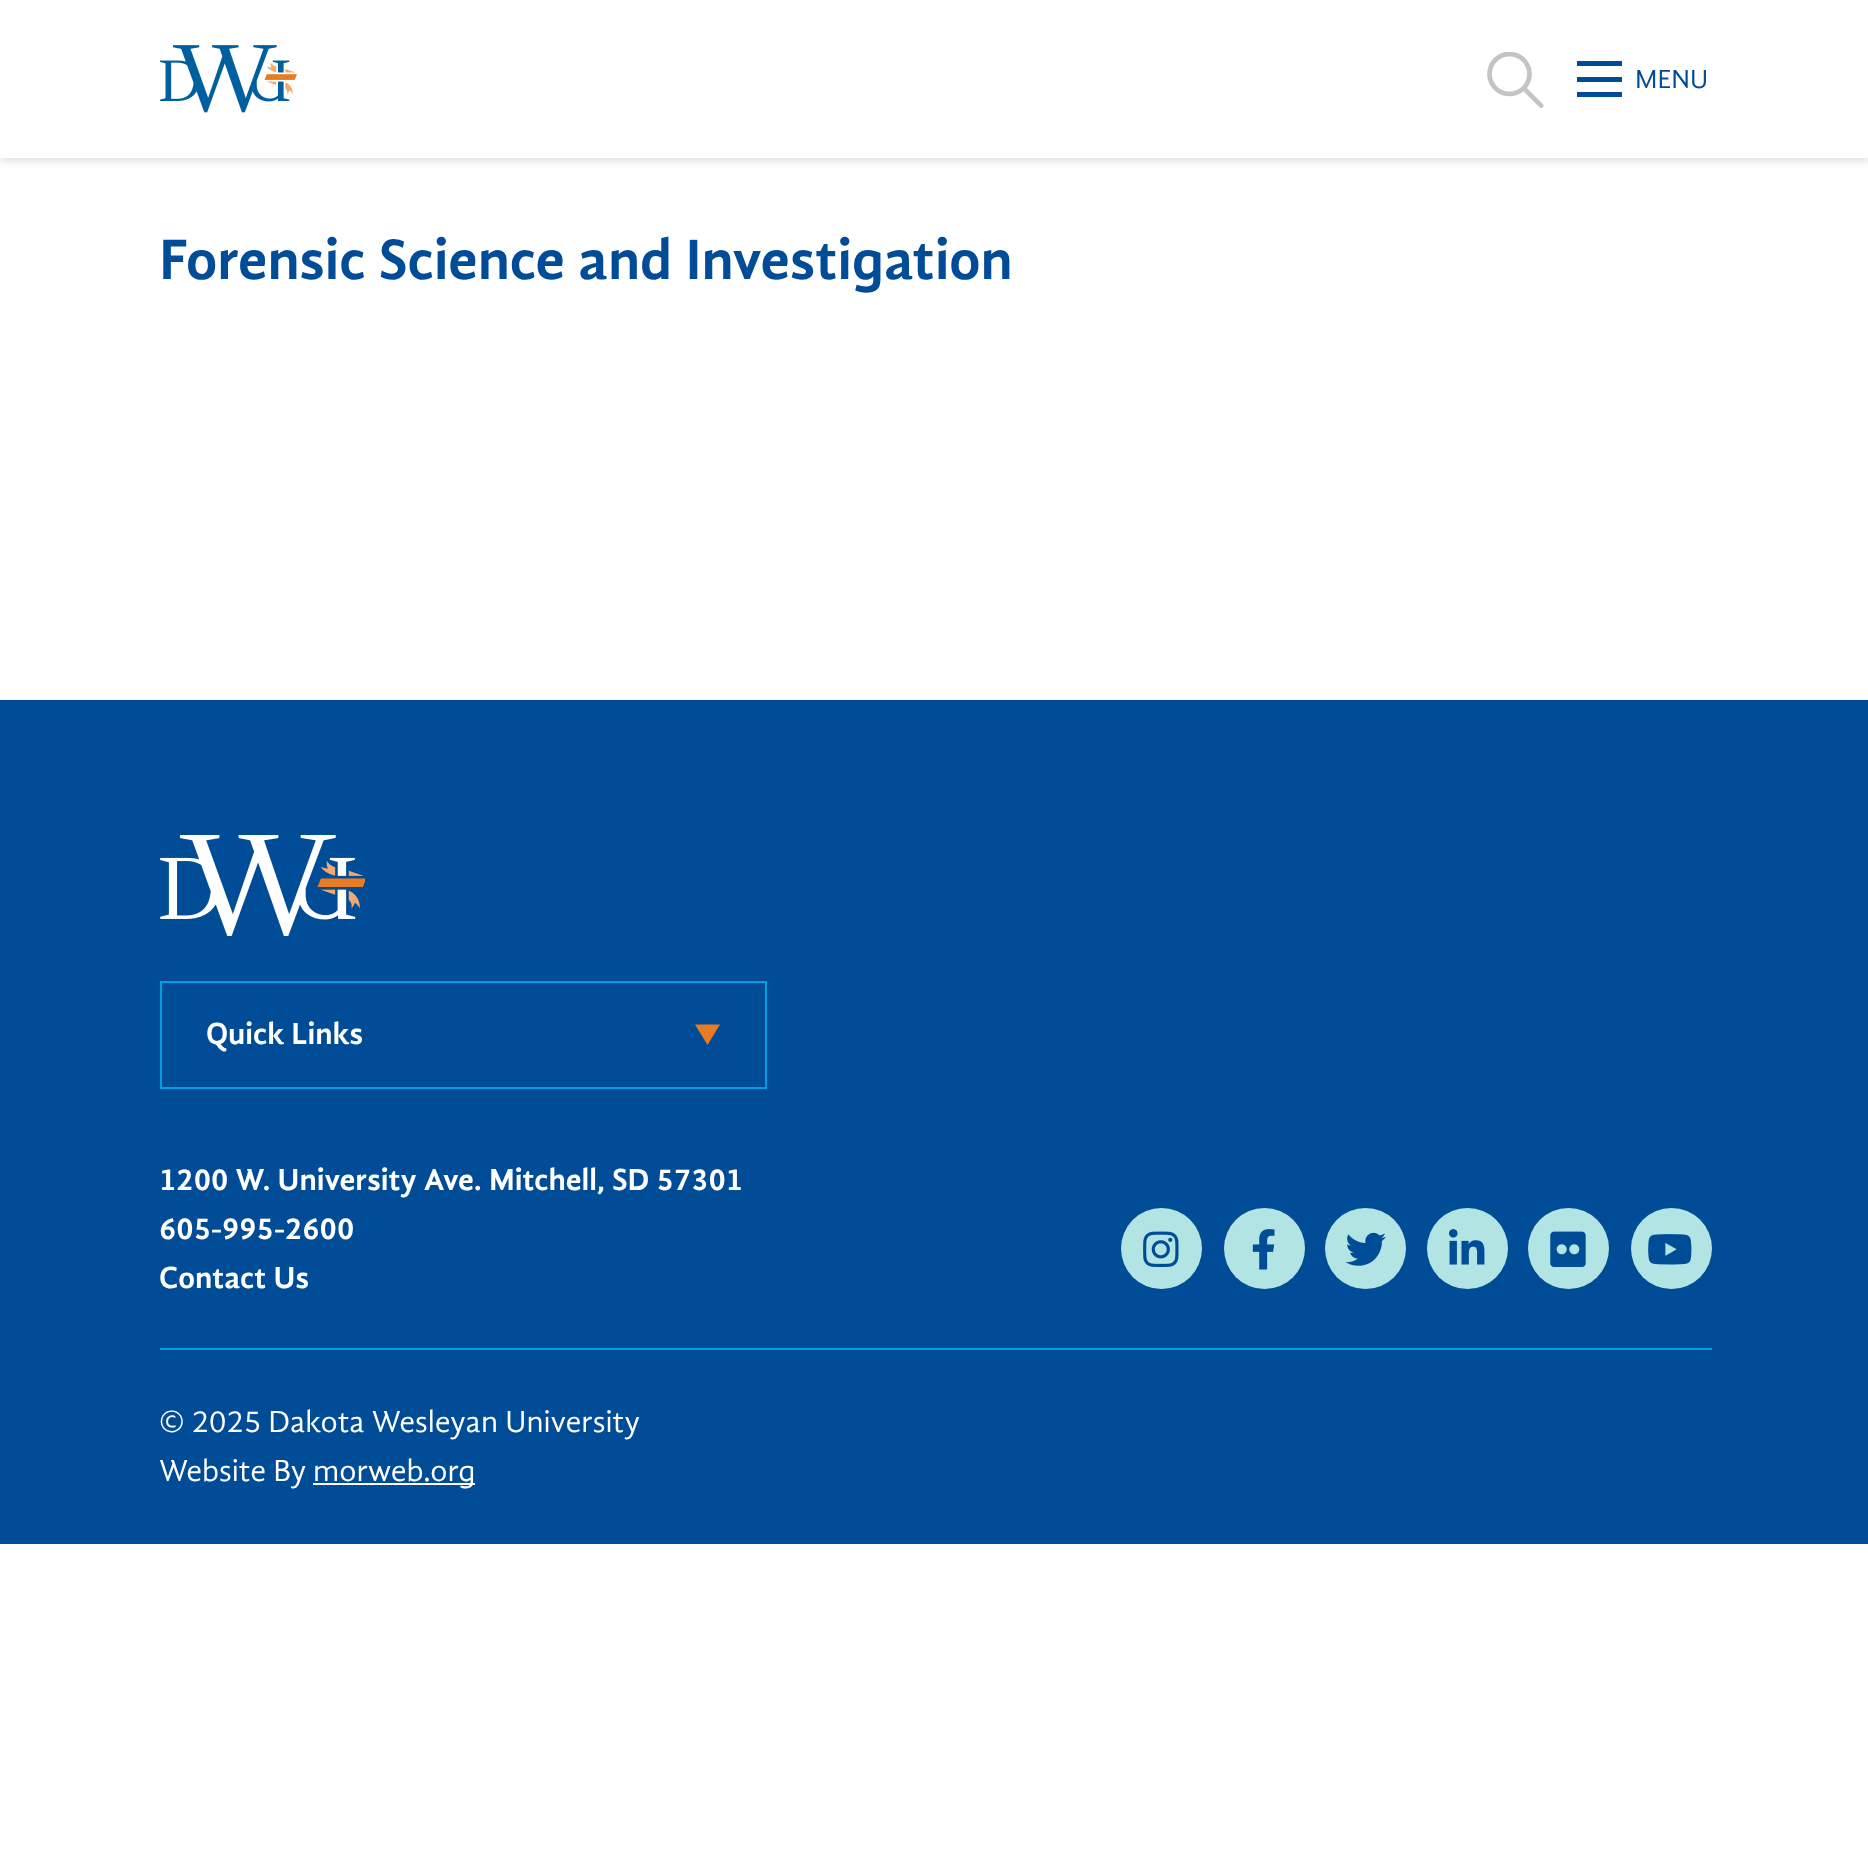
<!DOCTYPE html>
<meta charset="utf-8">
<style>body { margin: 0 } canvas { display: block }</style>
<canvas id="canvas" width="1868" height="1866"></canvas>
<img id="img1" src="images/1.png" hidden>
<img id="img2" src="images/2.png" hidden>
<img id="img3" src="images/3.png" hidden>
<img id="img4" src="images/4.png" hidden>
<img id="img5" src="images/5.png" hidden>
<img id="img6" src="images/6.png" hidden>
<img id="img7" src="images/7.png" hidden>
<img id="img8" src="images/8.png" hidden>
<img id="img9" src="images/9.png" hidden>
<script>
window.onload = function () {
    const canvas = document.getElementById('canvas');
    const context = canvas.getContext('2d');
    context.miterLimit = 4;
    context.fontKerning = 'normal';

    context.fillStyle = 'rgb(255, 255, 255)';
    context.fillRect(0, 0, 1868, 1866);
    context.fillStyle = 'rgba(0, 0, 0, 0.06)';
    context.filter = 'blur(5.5px)';
    context.beginPath();
    context.rect(0, 2, 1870, 158);
    context.fill();
    context.filter = 'none';
    context.filter = 'blur(2px)';
    context.beginPath();
    context.rect(0, 5, 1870, 157);
    context.fill();
    context.filter = 'none';
    context.fillStyle = 'rgb(255, 255, 255)';
    context.fillRect(0, 0, 1868, 158);
    context.drawImage(document.getElementById('img1'), 160, 45, 137, 68);
    context.drawImage(document.getElementById('img2'), 1487, 52, 57, 56);
    context.fillStyle = 'rgb(0, 76, 151)';
    context.fillRect(1577, 61, 45, 5);
    context.fillRect(1577, 77, 45, 5);
    context.fillRect(1577, 92, 45, 5);
    context.fillRect(0, 700, 1868, 844);
    context.drawImage(document.getElementById('img3'), 160, 835, 205, 101);
    context.strokeStyle = 'rgb(0, 159, 223)';
    context.lineWidth = 2;
    context.strokeRect(161, 982, 605, 106);
    context.fillStyle = 'rgb(231, 124, 34)';
    context.beginPath();
    context.moveTo(707.5, 1045);
    context.lineTo(695, 1024.5);
    context.lineTo(720, 1024.5);
    context.closePath();
    context.fill();
    context.fillStyle = 'rgb(177, 228, 227)';
    context.beginPath();
    context.arc(1161.5, 1248.5, 40.5, 0, 2 * Math.PI);
    context.fill();
    context.drawImage(document.getElementById('img4'), 1143, 1231, 36, 36);
    context.beginPath();
    context.arc(1264.5, 1248.5, 40.5, 0, 2 * Math.PI);
    context.fill();
    context.drawImage(document.getElementById('img5'), 1252, 1229, 23, 41);
    context.beginPath();
    context.arc(1365.5, 1248.5, 40.5, 0, 2 * Math.PI);
    context.fill();
    context.drawImage(document.getElementById('img6'), 1345, 1232, 41, 34);
    context.beginPath();
    context.arc(1467.5, 1248.5, 40.5, 0, 2 * Math.PI);
    context.fill();
    context.drawImage(document.getElementById('img7'), 1449, 1229, 36, 36);
    context.beginPath();
    context.arc(1568.5, 1248.5, 40.5, 0, 2 * Math.PI);
    context.fill();
    context.drawImage(document.getElementById('img8'), 1550, 1231, 36, 36);
    context.beginPath();
    context.arc(1671.5, 1248.5, 40.5, 0, 2 * Math.PI);
    context.fill();
    context.drawImage(document.getElementById('img9'), 1648, 1234, 44, 31);
    context.fillStyle = 'rgb(0, 159, 223)';
    context.fillRect(160, 1348, 1552, 2);
    context.fillStyle = 'rgb(255, 255, 255)';
    context.fillRect(313, 1483, 162, 2);
    context.font = '27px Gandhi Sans';
    context.fillStyle = 'rgb(0, 76, 151)';
    context.fillText('MENU', 1635, 88);
    context.font = 'bold 58.5px Gandhi Sans';
    context.fillText('Forensic Science and Investigation', 159, 279);
    context.font = 'bold 31.5px Gandhi Sans';
    context.fillStyle = 'rgb(255, 255, 255)';
    context.fillText('Quick Links', 206, 1044);
    context.fillText('1200 W. University Ave. Mitchell, SD 57301', 159, 1190);
    context.fillText('605-995-2600', 159, 1239);
    context.fillText('Contact Us', 159, 1288);
    context.font = '31.5px Gandhi Sans';
    context.fillText('© 2025 Dakota Wesleyan University', 159, 1432);
    context.fillText('Website By', 159, 1481);
    context.fillText('morweb.org', 313, 1481);
};
</script>
